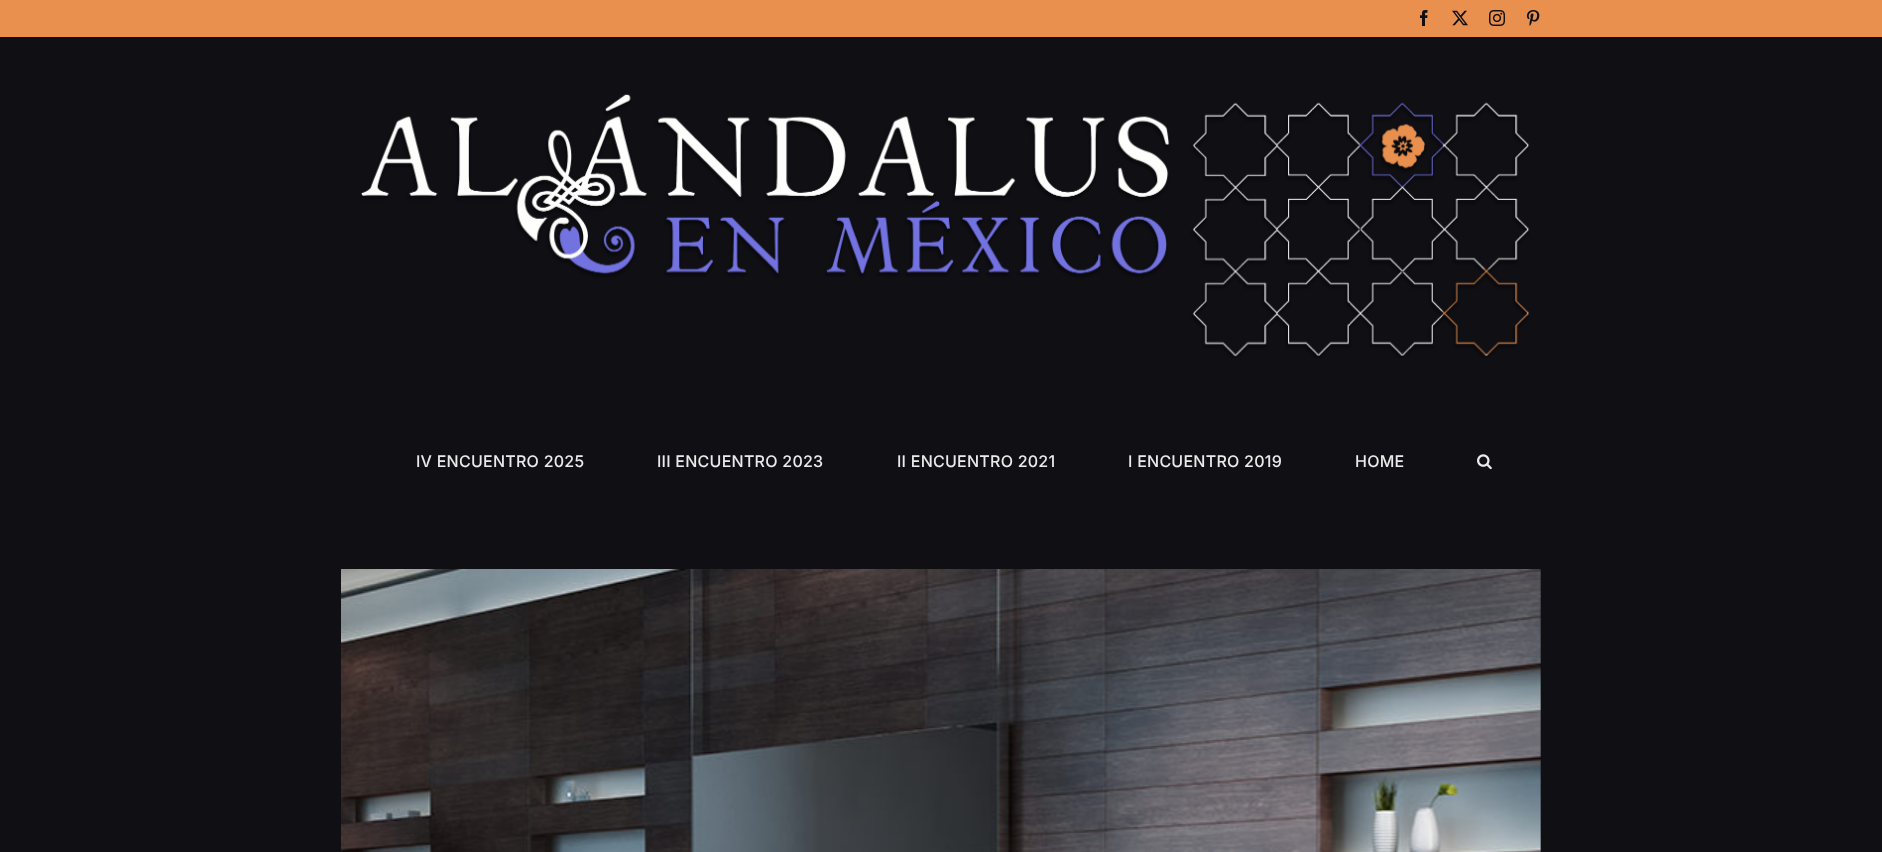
<!DOCTYPE html>
<meta charset="utf-8">
<style>body { margin: 0 } canvas { display: block }</style>
<canvas id="canvas" width="1882" height="852"></canvas>
<img id="img1" src="images/1.png" hidden>
<img id="img2" src="images/2.png" hidden>
<img id="img3" src="images/3.png" hidden>
<img id="img4" src="images/4.png" hidden>
<img id="img5" src="images/5.png" hidden>
<img id="img6" src="images/6.png" hidden>
<img id="img7" src="images/7.png" hidden>
<script>
window.onload = function () {
    const canvas = document.getElementById('canvas');
    const context = canvas.getContext('2d');
    context.miterLimit = 4;
    context.fontKerning = 'normal';

    context.fillStyle = 'rgb(15, 15, 20)';
    context.fillRect(0, 0, 1882, 852);
    context.fillStyle = 'rgb(233, 144, 78)';
    context.fillRect(0, 0, 1882, 37);
    context.drawImage(document.getElementById('img1'), 1420, 10, 8, 16);
    context.drawImage(document.getElementById('img2'), 1452, 10, 16, 16);
    context.drawImage(document.getElementById('img3'), 1489, 10, 16, 16);
    context.drawImage(document.getElementById('img4'), 1526, 10, 14, 16);
    context.drawImage(document.getElementById('img5'), 360, 94, 1170, 264);
    context.drawImage(document.getElementById('img6'), 1477, 454, 15, 16);
    context.drawImage(document.getElementById('img7'), 341, 569, 1200, 283);
    context.letterSpacing = '0.25px';
    context.font = '500 16px Inter';
    context.fillStyle = 'rgb(234, 234, 234)';
    context.fillText('IV ENCUENTRO 2025', 416, 467);
    context.fillText('III ENCUENTRO 2023', 657, 467);
    context.fillText('II ENCUENTRO 2021', 897, 467);
    context.fillText('I ENCUENTRO 2019', 1128, 467);
    context.fillText('HOME', 1355, 467);
};
</script>
